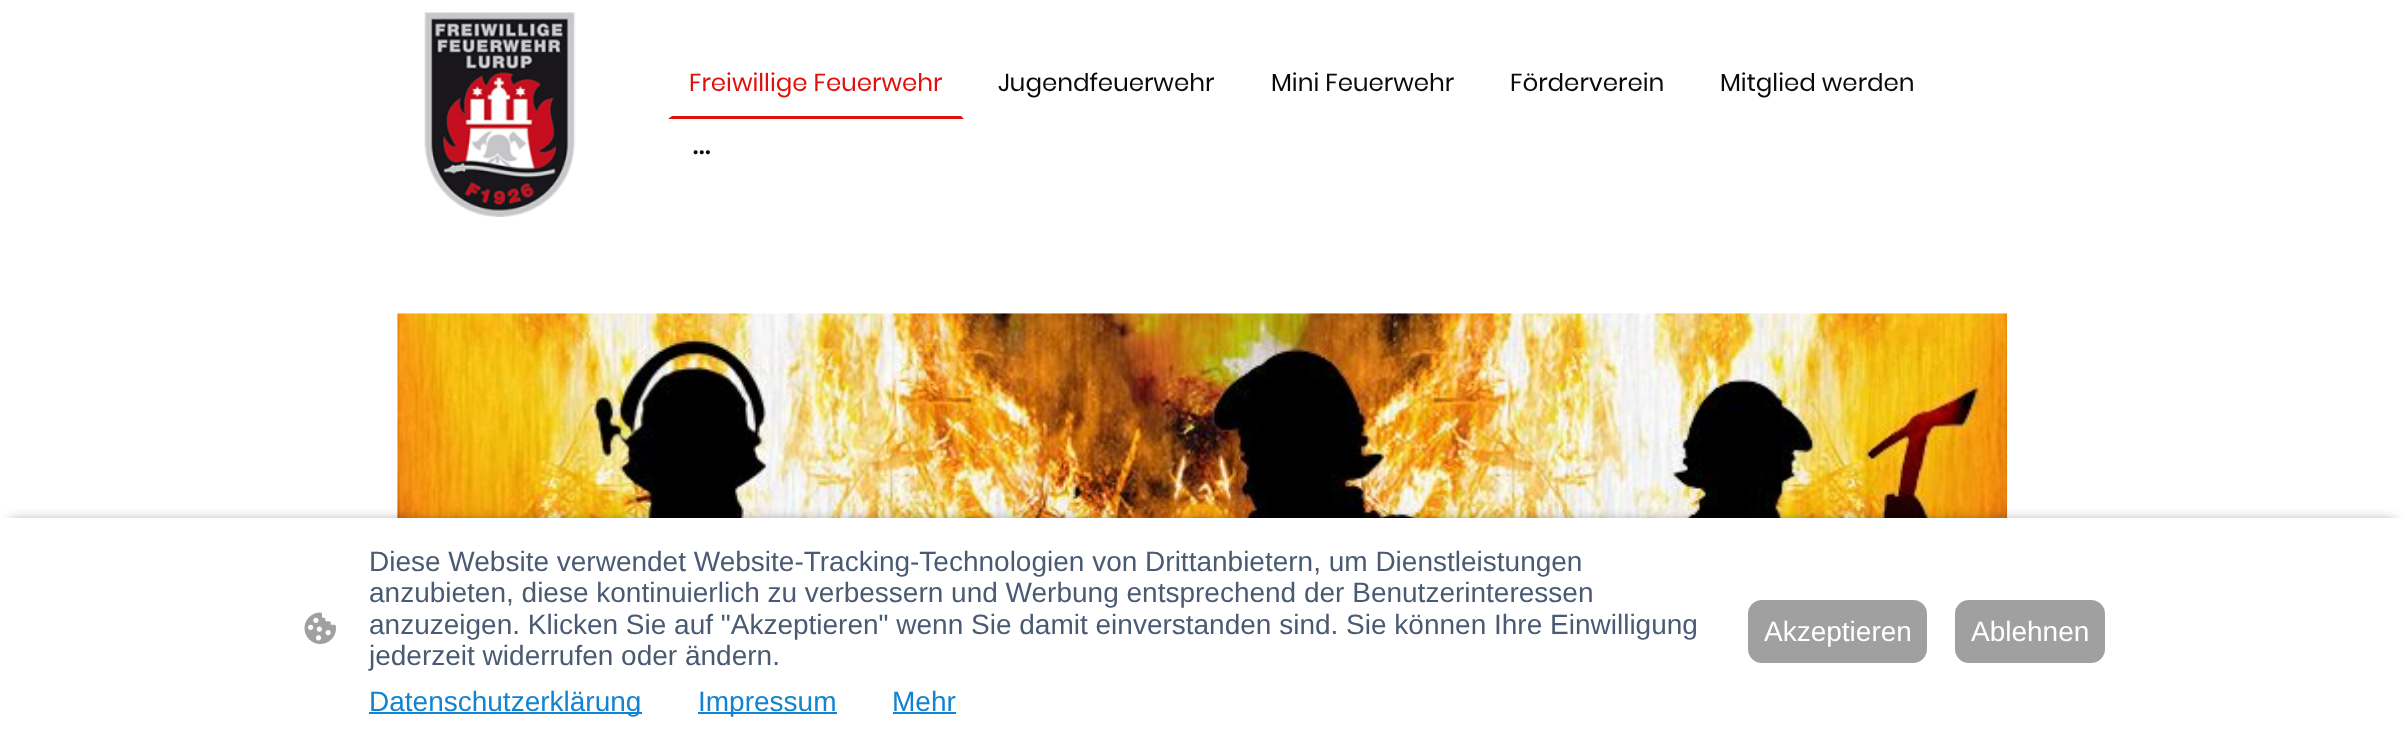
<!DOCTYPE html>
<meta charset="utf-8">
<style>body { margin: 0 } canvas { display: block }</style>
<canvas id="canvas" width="2404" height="745"></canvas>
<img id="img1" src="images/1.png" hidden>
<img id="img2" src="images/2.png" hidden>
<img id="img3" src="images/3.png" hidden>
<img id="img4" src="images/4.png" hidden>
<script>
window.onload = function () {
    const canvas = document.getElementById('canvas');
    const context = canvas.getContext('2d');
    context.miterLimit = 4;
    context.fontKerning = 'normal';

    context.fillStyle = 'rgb(255, 255, 255)';
    context.fillRect(0, 0, 2404, 745);
    context.drawImage(document.getElementById('img1'), 424, 12, 152, 205);
    context.fillStyle = 'rgb(224, 17, 12)';
    context.beginPath();
    context.moveTo(964, 119);
    context.lineTo(668, 119);
    context.lineTo(672, 116);
    context.lineTo(961, 116);
    context.closePath();
    context.fill();
    context.drawImage(document.getElementById('img2'), 693, 150, 17, 5);
    context.drawImage(document.getElementById('img3'), 397, 313, 1611, 205);
    context.fillStyle = 'rgba(0, 0, 0, 0.63)';
    context.filter = 'blur(7px)';
    context.beginPath();
    context.rect(11, 523, 2383, 207);
    context.fill();
    context.filter = 'none';
    context.fillStyle = 'rgb(255, 255, 255)';
    context.fillRect(0, 518, 2404, 227);
    context.drawImage(document.getElementById('img4'), 304, 612, 32, 32);
    context.fillStyle = 'rgb(17, 131, 209)';
    context.fillRect(369, 712, 273, 2);
    context.fillRect(698, 712, 139, 2);
    context.fillRect(893, 712, 63, 2);
    context.fillStyle = 'rgb(160, 160, 160)';
    context.beginPath();
    context.roundRect(1749, 601, 177, 61, 13);
    context.fill();
    context.strokeStyle = 'rgb(160, 160, 160)';
    context.lineWidth = 2;
    context.stroke();
    context.beginPath();
    context.roundRect(1956, 601, 148, 61, 13);
    context.fill();
    context.stroke();
    context.font = '24.5px Poppins';
    context.fillStyle = 'rgb(224, 17, 12)';
    context.fillText('Freiwillige Feuerwehr', 689, 91);
    context.fillStyle = 'rgb(9, 10, 10)';
    context.fillText('Jugendfeuerwehr', 998, 91);
    context.fillText('Mini Feuerwehr', 1271, 91);
    context.fillText('Förderverein', 1510, 91);
    context.fillText('Mitglied werden', 1720, 91);
    context.font = '28px Liberation Sans';
    context.fillStyle = 'rgb(74, 90, 115)';
    context.fillText('Diese Website verwendet Website-Tracking-Technologien von Drittanbietern, um Dienstleistungen', 369, 571);
    context.fillText('anzubieten, diese kontinuierlich zu verbessern und Werbung entsprechend der Benutzerinteressen', 369, 602);
    context.fillText('anzuzeigen. Klicken Sie auf "Akzeptieren" wenn Sie damit einverstanden sind. Sie können Ihre Einwilligung', 369, 634);
    context.fillText('jederzeit widerrufen oder ändern.', 369, 665);
    context.fillStyle = 'rgb(17, 131, 209)';
    context.fillText('Datenschutzerklärung', 369, 711);
    context.fillText('Impressum', 698, 711);
    context.fillText('Mehr', 892, 711);
    context.fillStyle = 'rgb(255, 255, 255)';
    context.fillText('Akzeptieren', 1764, 641);
    context.fillText('Ablehnen', 1971, 641);
};
</script>
